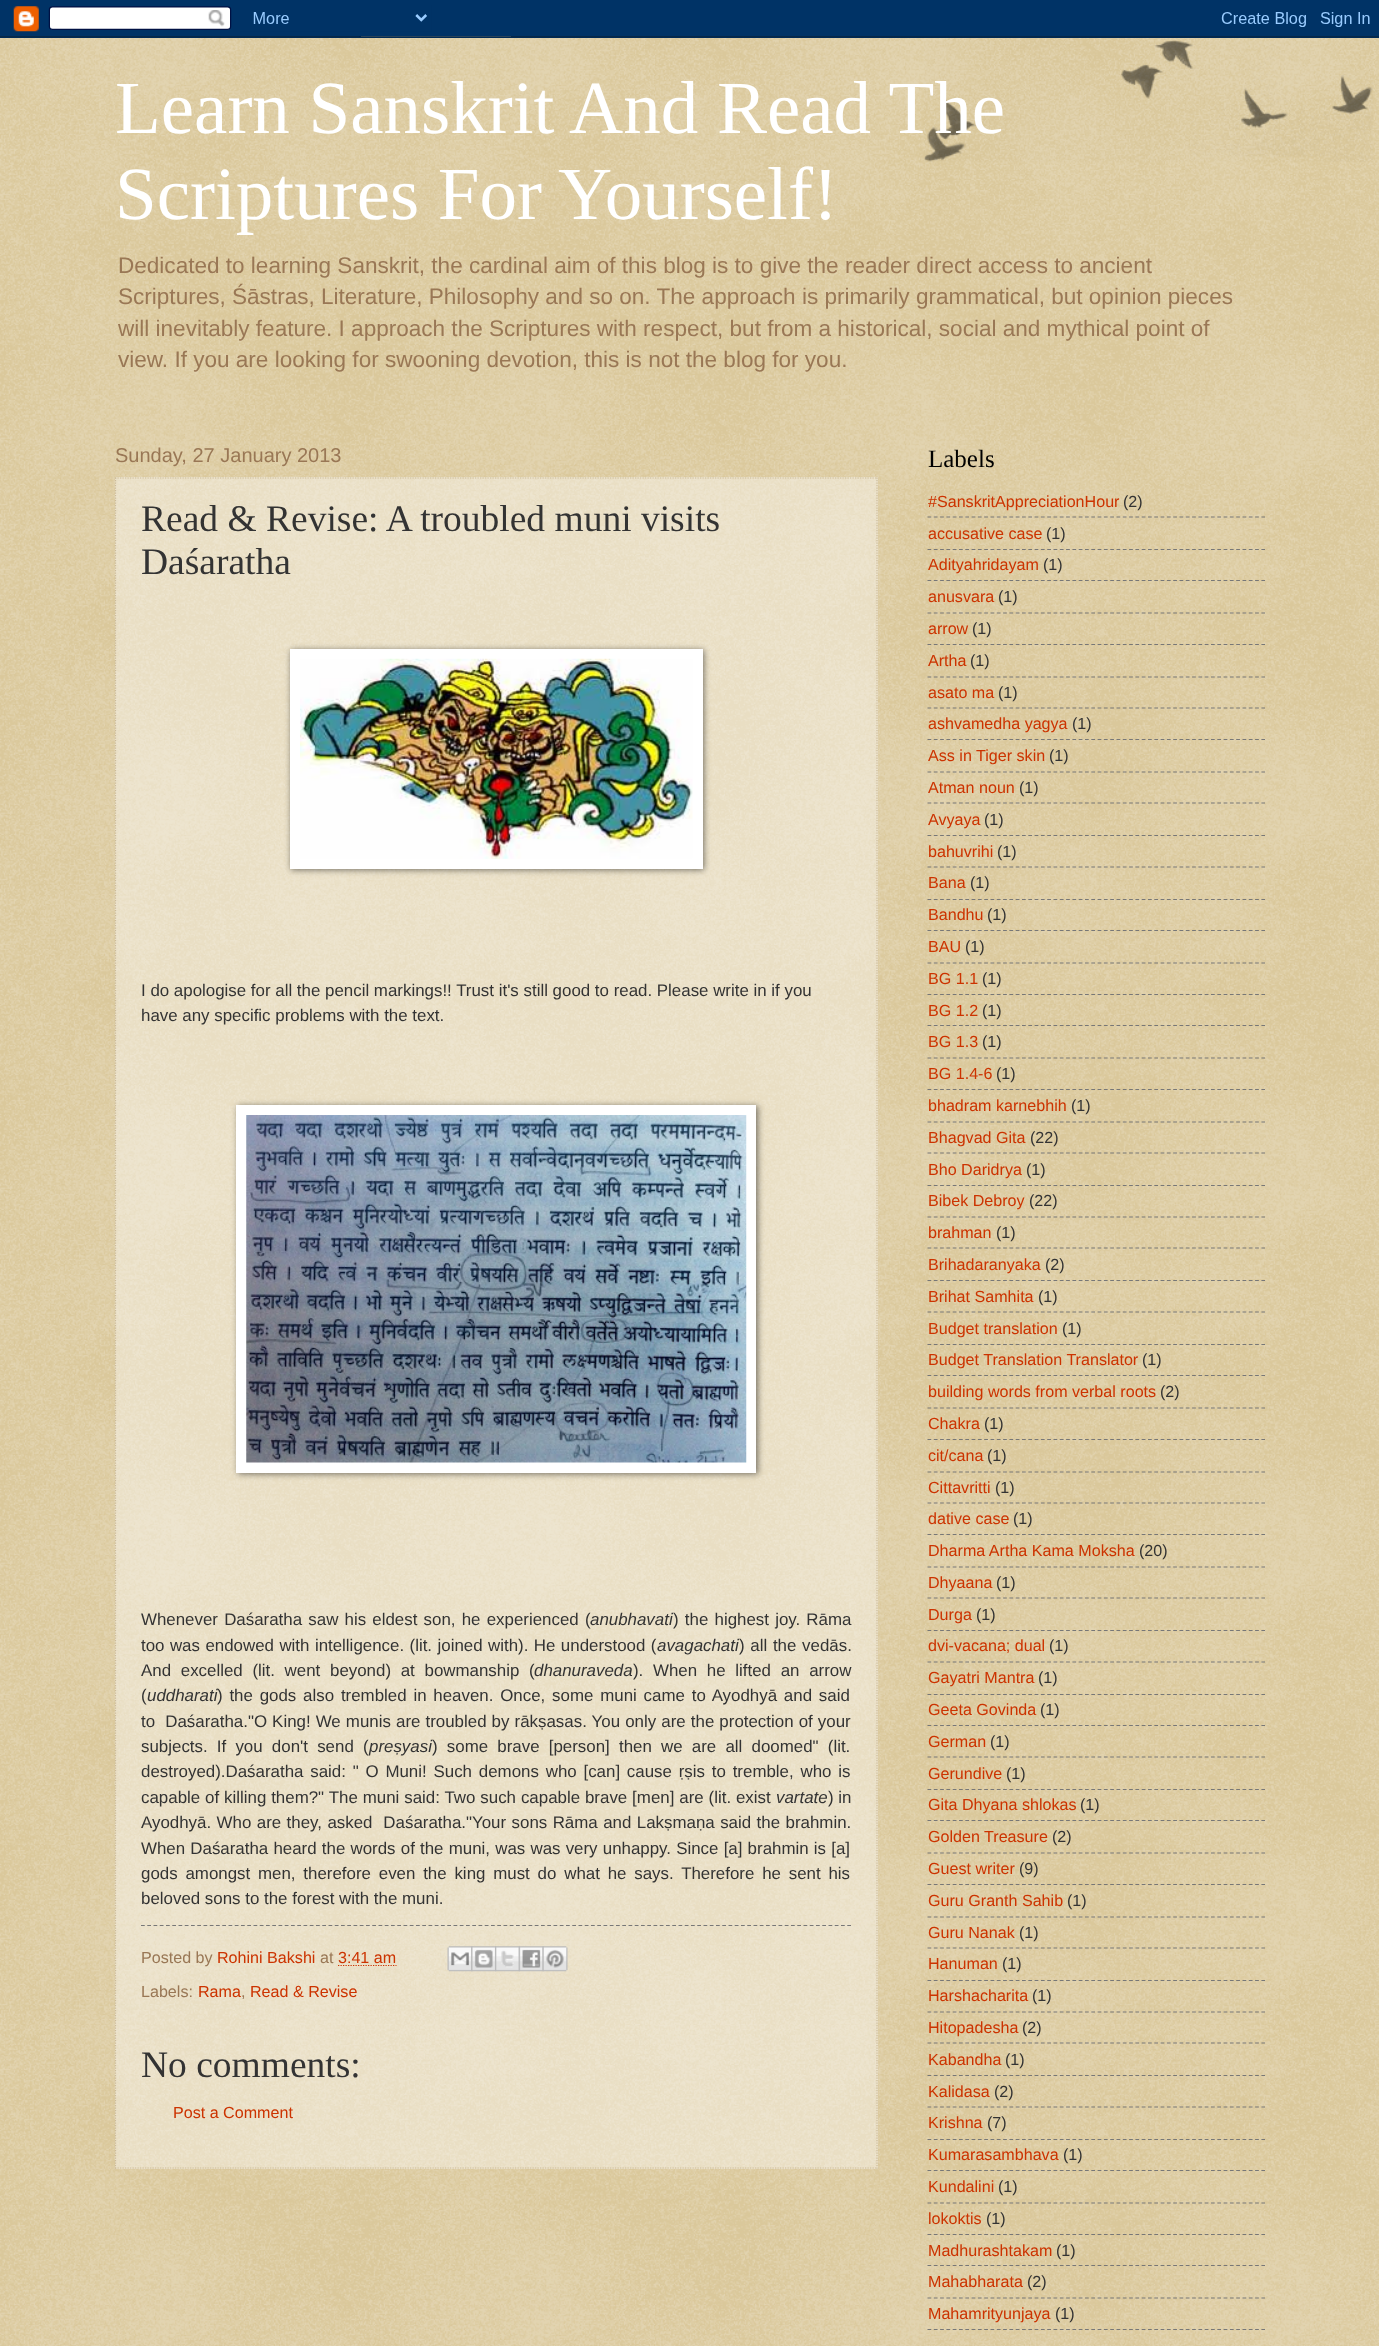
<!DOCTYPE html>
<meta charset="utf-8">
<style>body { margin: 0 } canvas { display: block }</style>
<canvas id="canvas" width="1379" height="2346"></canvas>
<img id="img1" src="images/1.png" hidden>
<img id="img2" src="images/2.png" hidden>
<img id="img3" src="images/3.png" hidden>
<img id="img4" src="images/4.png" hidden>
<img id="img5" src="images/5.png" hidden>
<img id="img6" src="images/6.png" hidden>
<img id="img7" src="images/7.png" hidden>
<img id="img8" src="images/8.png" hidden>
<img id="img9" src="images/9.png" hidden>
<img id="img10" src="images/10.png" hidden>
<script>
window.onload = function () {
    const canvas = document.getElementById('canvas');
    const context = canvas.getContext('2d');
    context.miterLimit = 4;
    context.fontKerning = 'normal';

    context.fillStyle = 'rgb(192, 161, 84)';
    context.fillRect(0, 0, 1379, 2346);
    context.drawImage(document.getElementById('img1'), 0, 36, 1379, 2310);
    context.drawImage(document.getElementById('img2'), 0, 0, 1379, 38);
    context.drawImage(document.getElementById('img3'), 924, 40, 449, 122);
    context.fillStyle = 'rgba(255, 255, 255, 0.4)';
    context.fillRect(115, 477, 763, 1692);
    context.beginPath();
    context.moveTo(115, 478);
    context.lineTo(877.5, 478);
    context.strokeStyle = 'rgb(204, 187, 153)';
    context.lineWidth = 1.2;
    context.setLineDash([1.25, 1.25]);
    context.stroke();
    context.beginPath();
    context.moveTo(877, 477.5);
    context.lineTo(877, 2169);
    context.stroke();
    context.beginPath();
    context.moveTo(115, 2168);
    context.lineTo(877.5, 2168);
    context.stroke();
    context.beginPath();
    context.moveTo(115.5, 477.5);
    context.lineTo(115.5, 2169);
    context.stroke();
    context.fillStyle = 'rgba(0, 0, 0, 0.5)';
    context.filter = 'blur(3px)';
    context.beginPath();
    context.rect(291, 650, 413, 220);
    context.fill();
    context.filter = 'none';
    context.fillStyle = 'rgb(255, 255, 255)';
    context.fillRect(290, 649, 413, 220);
    context.drawImage(document.getElementById('img4'), 300, 658, 393, 201);
    context.fillStyle = 'rgba(0, 0, 0, 0.5)';
    context.filter = 'blur(3px)';
    context.beginPath();
    context.rect(238, 1106, 520, 368);
    context.fill();
    context.filter = 'none';
    context.fillStyle = 'rgb(255, 255, 255)';
    context.fillRect(236, 1105, 520, 368);
    context.drawImage(document.getElementById('img5'), 246, 1115, 501, 348);
    context.beginPath();
    context.moveTo(141, 1925.5);
    context.lineTo(851, 1925.5);
    context.strokeStyle = 'rgb(119, 119, 119)';
    context.setLineDash([3.75, 2.5]);
    context.stroke();
    context.beginPath();
    context.moveTo(338, 1965.5);
    context.lineTo(396.5, 1965.5);
    context.strokeStyle = 'rgb(204, 51, 0)';
    context.setLineDash([1.25, 1.25]);
    context.stroke();
    context.drawImage(document.getElementById('img6'), 447, 1946, 26, 26);
    context.drawImage(document.getElementById('img7'), 471, 1946, 26, 26);
    context.drawImage(document.getElementById('img8'), 495, 1946, 25, 26);
    context.drawImage(document.getElementById('img9'), 518, 1946, 26, 26);
    context.drawImage(document.getElementById('img10'), 542, 1946, 26, 26);
    context.beginPath();
    context.moveTo(927.5, 517);
    context.lineTo(1265, 517);
    context.strokeStyle = 'rgb(119, 119, 119)';
    context.setLineDash([3.75, 2.55]);
    context.stroke();
    context.beginPath();
    context.moveTo(927.5, 549.5);
    context.lineTo(1265, 549.5);
    context.stroke();
    context.beginPath();
    context.moveTo(927.5, 580.5);
    context.lineTo(1265, 580.5);
    context.stroke();
    context.beginPath();
    context.moveTo(927.5, 613);
    context.lineTo(1265, 613);
    context.stroke();
    context.beginPath();
    context.moveTo(927.5, 644.5);
    context.lineTo(1265, 644.5);
    context.stroke();
    context.beginPath();
    context.moveTo(927.5, 677);
    context.lineTo(1265, 677);
    context.stroke();
    context.beginPath();
    context.moveTo(927.5, 708);
    context.lineTo(1265, 708);
    context.stroke();
    context.beginPath();
    context.moveTo(927.5, 739.5);
    context.lineTo(1265, 739.5);
    context.stroke();
    context.beginPath();
    context.moveTo(927.5, 772);
    context.lineTo(1265, 772);
    context.stroke();
    context.beginPath();
    context.moveTo(927.5, 803);
    context.lineTo(1265, 803);
    context.stroke();
    context.beginPath();
    context.moveTo(927.5, 835.5);
    context.lineTo(1265, 835.5);
    context.stroke();
    context.beginPath();
    context.moveTo(927.5, 867);
    context.lineTo(1265, 867);
    context.stroke();
    context.beginPath();
    context.moveTo(927.5, 899.5);
    context.lineTo(1265, 899.5);
    context.stroke();
    context.beginPath();
    context.moveTo(927.5, 930.5);
    context.lineTo(1265, 930.5);
    context.stroke();
    context.beginPath();
    context.moveTo(927.5, 963);
    context.lineTo(1265, 963);
    context.stroke();
    context.beginPath();
    context.moveTo(927.5, 994.5);
    context.lineTo(1265, 994.5);
    context.stroke();
    context.beginPath();
    context.moveTo(927.5, 1025.5);
    context.lineTo(1265, 1025.5);
    context.stroke();
    context.beginPath();
    context.moveTo(927.5, 1058);
    context.lineTo(1265, 1058);
    context.stroke();
    context.beginPath();
    context.moveTo(927.5, 1089.5);
    context.lineTo(1265, 1089.5);
    context.stroke();
    context.beginPath();
    context.moveTo(927.5, 1122);
    context.lineTo(1265, 1122);
    context.stroke();
    context.beginPath();
    context.moveTo(927.5, 1153);
    context.lineTo(1265, 1153);
    context.stroke();
    context.beginPath();
    context.moveTo(927.5, 1185.5);
    context.lineTo(1265, 1185.5);
    context.stroke();
    context.beginPath();
    context.moveTo(927.5, 1217);
    context.lineTo(1265, 1217);
    context.stroke();
    context.beginPath();
    context.moveTo(927.5, 1248);
    context.lineTo(1265, 1248);
    context.stroke();
    context.beginPath();
    context.moveTo(927.5, 1280.5);
    context.lineTo(1265, 1280.5);
    context.stroke();
    context.beginPath();
    context.moveTo(927.5, 1312);
    context.lineTo(1265, 1312);
    context.stroke();
    context.beginPath();
    context.moveTo(927.5, 1344.5);
    context.lineTo(1265, 1344.5);
    context.stroke();
    context.beginPath();
    context.moveTo(927.5, 1375.5);
    context.lineTo(1265, 1375.5);
    context.stroke();
    context.beginPath();
    context.moveTo(927.5, 1408);
    context.lineTo(1265, 1408);
    context.stroke();
    context.beginPath();
    context.moveTo(927.5, 1439.5);
    context.lineTo(1265, 1439.5);
    context.stroke();
    context.beginPath();
    context.moveTo(927.5, 1472);
    context.lineTo(1265, 1472);
    context.stroke();
    context.beginPath();
    context.moveTo(927.5, 1503);
    context.lineTo(1265, 1503);
    context.stroke();
    context.beginPath();
    context.moveTo(927.5, 1534.5);
    context.lineTo(1265, 1534.5);
    context.stroke();
    context.beginPath();
    context.moveTo(927.5, 1567);
    context.lineTo(1265, 1567);
    context.stroke();
    context.beginPath();
    context.moveTo(927.5, 1598);
    context.lineTo(1265, 1598);
    context.stroke();
    context.beginPath();
    context.moveTo(927.5, 1630.5);
    context.lineTo(1265, 1630.5);
    context.stroke();
    context.beginPath();
    context.moveTo(927.5, 1662);
    context.lineTo(1265, 1662);
    context.stroke();
    context.beginPath();
    context.moveTo(927.5, 1694.5);
    context.lineTo(1265, 1694.5);
    context.stroke();
    context.beginPath();
    context.moveTo(927.5, 1725.5);
    context.lineTo(1265, 1725.5);
    context.stroke();
    context.beginPath();
    context.moveTo(927.5, 1757);
    context.lineTo(1265, 1757);
    context.stroke();
    context.beginPath();
    context.moveTo(927.5, 1789.5);
    context.lineTo(1265, 1789.5);
    context.stroke();
    context.beginPath();
    context.moveTo(927.5, 1820.5);
    context.lineTo(1265, 1820.5);
    context.stroke();
    context.beginPath();
    context.moveTo(927.5, 1853);
    context.lineTo(1265, 1853);
    context.stroke();
    context.beginPath();
    context.moveTo(927.5, 1884.5);
    context.lineTo(1265, 1884.5);
    context.stroke();
    context.beginPath();
    context.moveTo(927.5, 1917);
    context.lineTo(1265, 1917);
    context.stroke();
    context.beginPath();
    context.moveTo(927.5, 1948);
    context.lineTo(1265, 1948);
    context.stroke();
    context.beginPath();
    context.moveTo(927.5, 1980.5);
    context.lineTo(1265, 1980.5);
    context.stroke();
    context.beginPath();
    context.moveTo(927.5, 2012);
    context.lineTo(1265, 2012);
    context.stroke();
    context.beginPath();
    context.moveTo(927.5, 2043);
    context.lineTo(1265, 2043);
    context.stroke();
    context.beginPath();
    context.moveTo(927.5, 2075.5);
    context.lineTo(1265, 2075.5);
    context.stroke();
    context.beginPath();
    context.moveTo(927.5, 2107);
    context.lineTo(1265, 2107);
    context.stroke();
    context.beginPath();
    context.moveTo(927.5, 2139.5);
    context.lineTo(1265, 2139.5);
    context.stroke();
    context.beginPath();
    context.moveTo(927.5, 2170.5);
    context.lineTo(1265, 2170.5);
    context.stroke();
    context.beginPath();
    context.moveTo(927.5, 2203);
    context.lineTo(1265, 2203);
    context.stroke();
    context.beginPath();
    context.moveTo(927.5, 2234.5);
    context.lineTo(1265, 2234.5);
    context.stroke();
    context.beginPath();
    context.moveTo(927.5, 2265.5);
    context.lineTo(1265, 2265.5);
    context.stroke();
    context.beginPath();
    context.moveTo(927.5, 2298);
    context.lineTo(1265, 2298);
    context.stroke();
    context.beginPath();
    context.moveTo(927.5, 2329.5);
    context.lineTo(1265, 2329.5);
    context.stroke();
    context.font = '75px Liberation Serif';
    context.fillText('Learn Sanskrit And Read The', 115, 133);
    context.fillText('Scriptures For Yourself!', 115, 219);
    context.font = '22.55px Liberation Sans';
    context.fillStyle = 'rgb(153, 119, 85)';
    context.fillText('Dedicated to learning Sanskrit, the cardinal aim of this blog is to give the reader direct access to ancient', 118, 273);
    context.fillText('Scriptures, Śāstras, Literature, Philosophy and so on. The approach is primarily grammatical, but opinion pieces', 118, 304);
    context.fillText('will inevitably feature. I approach the Scriptures with respect, but from a historical, social and mythical point of', 118, 336);
    context.fillText('view. If you are looking for swooning devotion, this is not the blog for you.', 118, 367);
    context.font = '20px Liberation Sans';
    context.fillText('Sunday, 27 January 2013', 115, 462);
    context.font = '37.5px Liberation Serif';
    context.fillStyle = 'rgb(51, 51, 51)';
    context.fillText('Read & Revise: A troubled muni visits', 141, 531);
    context.fillText('Daśaratha', 141, 574);
    context.font = '16.9px Liberation Sans';
    context.fillText('I do apologise for all the pencil markings!! Trust it\'s still good to read. Please write in if you', 141, 996);
    context.fillText('have any specific problems with the text.', 141, 1021);
    context.wordSpacing = '1.5px';
    context.fillText('Whenever Daśaratha saw his eldest son, he experienced (', 141, 1625);
    context.wordSpacing = '0px';
    context.font = 'italic 16.9px Liberation Sans';
    context.fillText('anubhavati', 590, 1625);
    context.wordSpacing = '1.5px';
    context.font = '16.9px Liberation Sans';
    context.fillText(') the highest joy. Rāma', 673, 1625);
    context.wordSpacing = '0.75px';
    context.fillText('too was endowed with intelligence. (lit. joined with). He understood (', 141, 1651);
    context.wordSpacing = '0px';
    context.font = 'italic 16.9px Liberation Sans';
    context.fillText('avagachati', 657, 1651);
    context.wordSpacing = '1px';
    context.font = '16.9px Liberation Sans';
    context.fillText(') all the vedās.', 739, 1651);
    context.wordSpacing = '5px';
    context.fillText('And excelled (lit. went beyond) at bowmanship (', 141, 1676);
    context.wordSpacing = '0px';
    context.font = 'italic 16.9px Liberation Sans';
    context.fillText('dhanuraveda', 534, 1676);
    context.wordSpacing = '5px';
    context.font = '16.9px Liberation Sans';
    context.fillText('). When he lifted an arrow', 633, 1676);
    context.wordSpacing = '0px';
    context.fillText('(', 141, 1701);
    context.font = 'italic 16.9px Liberation Sans';
    context.fillText('uddharati', 147, 1701);
    context.wordSpacing = '2.1px';
    context.font = '16.9px Liberation Sans';
    context.fillText(') the gods also trembled in heaven. Once, some muni came to Ayodhyā and said', 217, 1701);
    context.wordSpacing = '0.4px';
    context.fillText('to  Daśaratha."O King! We munis are troubled by rākṣasas. You only are the protection of your', 141, 1727);
    context.wordSpacing = '4.5px';
    context.fillText('subjects. If you don\'t send (', 141, 1752);
    context.wordSpacing = '0px';
    context.font = 'italic 16.9px Liberation Sans';
    context.fillText('preṣyasi', 369, 1752);
    context.wordSpacing = '4.5px';
    context.font = '16.9px Liberation Sans';
    context.fillText(') some brave [person] then we are all doomed" (lit.', 432, 1752);
    context.wordSpacing = '2.1px';
    context.fillText('destroyed).Daśaratha said: " O Muni! Such demons who [can] cause ṛṣis to tremble, who is', 141, 1777);
    context.wordSpacing = '0.2px';
    context.fillText('capable of killing them?" The muni said: Two such capable brave [men] are (lit. exist', 141, 1803);
    context.wordSpacing = '0px';
    context.font = 'italic 16.9px Liberation Sans';
    context.fillText('vartate', 776, 1803);
    context.font = '16.9px Liberation Sans';
    context.fillText(') in', 828, 1803);
    context.wordSpacing = '0.75px';
    context.fillText('Ayodhyā. Who are they, asked  Daśaratha."Your sons Rāma and Lakṣmaṇa said the brahmin.', 141, 1828);
    context.wordSpacing = '0.5px';
    context.fillText('When Daśaratha heard the words of the muni, was was very unhappy. Since [a] brahmin is [a]', 141, 1854);
    context.wordSpacing = '3.1px';
    context.fillText('gods amongst men, therefore even the king must do what he says. Therefore he sent his', 141, 1879);
    context.wordSpacing = '0px';
    context.fillText('beloved sons to the forest with the muni.', 141, 1904);
    context.font = '16.1px Liberation Sans';
    context.fillStyle = 'rgb(153, 119, 85)';
    context.fillText('Posted by', 141, 1963);
    context.fillStyle = 'rgb(204, 51, 0)';
    context.fillText('Rohini Bakshi', 217, 1963);
    context.fillStyle = 'rgb(153, 119, 85)';
    context.fillText('at', 320, 1963);
    context.fillStyle = 'rgb(204, 51, 0)';
    context.fillText('3:41 am', 338, 1963);
    context.fillStyle = 'rgb(153, 119, 85)';
    context.fillText('Labels:', 141, 1997);
    context.fillStyle = 'rgb(204, 51, 0)';
    context.fillText('Rama', 198, 1997);
    context.fillStyle = 'rgb(153, 119, 85)';
    context.fillText(',', 241, 1997);
    context.fillStyle = 'rgb(204, 51, 0)';
    context.fillText('Read & Revise', 250, 1997);
    context.font = '37.5px Liberation Serif';
    context.fillStyle = 'rgb(51, 51, 51)';
    context.fillText('No comments:', 141, 2077);
    context.font = '16.1px Liberation Sans';
    context.fillStyle = 'rgb(204, 51, 0)';
    context.fillText('Post a Comment', 173, 2118);
    context.font = '25px Liberation Serif';
    context.fillStyle = 'rgb(0, 0, 0)';
    context.fillText('Labels', 928, 467);
    context.font = '16.1px Liberation Sans';
    context.fillStyle = 'rgb(204, 51, 0)';
    context.fillText('#SanskritAppreciationHour', 928, 507);
    context.fillStyle = 'rgb(51, 51, 51)';
    context.fillText('(2)', 1123, 507);
    context.fillStyle = 'rgb(204, 51, 0)';
    context.fillText('accusative case', 928, 539);
    context.fillStyle = 'rgb(51, 51, 51)';
    context.fillText('(1)', 1046, 539);
    context.fillStyle = 'rgb(204, 51, 0)';
    context.fillText('Adityahridayam', 928, 570);
    context.fillStyle = 'rgb(51, 51, 51)';
    context.fillText('(1)', 1043, 570);
    context.fillStyle = 'rgb(204, 51, 0)';
    context.fillText('anusvara', 928, 602);
    context.fillStyle = 'rgb(51, 51, 51)';
    context.fillText('(1)', 998, 602);
    context.fillStyle = 'rgb(204, 51, 0)';
    context.fillText('arrow', 928, 634);
    context.fillStyle = 'rgb(51, 51, 51)';
    context.fillText('(1)', 972, 634);
    context.fillStyle = 'rgb(204, 51, 0)';
    context.fillText('Artha', 928, 666);
    context.fillStyle = 'rgb(51, 51, 51)';
    context.fillText('(1)', 970, 666);
    context.fillStyle = 'rgb(204, 51, 0)';
    context.fillText('asato ma', 928, 698);
    context.fillStyle = 'rgb(51, 51, 51)';
    context.fillText('(1)', 998, 698);
    context.fillStyle = 'rgb(204, 51, 0)';
    context.fillText('ashvamedha yagya', 928, 729);
    context.fillStyle = 'rgb(51, 51, 51)';
    context.fillText('(1)', 1072, 729);
    context.fillStyle = 'rgb(204, 51, 0)';
    context.fillText('Ass in Tiger skin', 928, 761);
    context.fillStyle = 'rgb(51, 51, 51)';
    context.fillText('(1)', 1049, 761);
    context.fillStyle = 'rgb(204, 51, 0)';
    context.fillText('Atman noun', 928, 793);
    context.fillStyle = 'rgb(51, 51, 51)';
    context.fillText('(1)', 1019, 793);
    context.fillStyle = 'rgb(204, 51, 0)';
    context.fillText('Avyaya', 928, 825);
    context.fillStyle = 'rgb(51, 51, 51)';
    context.fillText('(1)', 984, 825);
    context.fillStyle = 'rgb(204, 51, 0)';
    context.fillText('bahuvrihi', 928, 857);
    context.fillStyle = 'rgb(51, 51, 51)';
    context.fillText('(1)', 997, 857);
    context.fillStyle = 'rgb(204, 51, 0)';
    context.fillText('Bana', 928, 888);
    context.fillStyle = 'rgb(51, 51, 51)';
    context.fillText('(1)', 970, 888);
    context.fillStyle = 'rgb(204, 51, 0)';
    context.fillText('Bandhu', 928, 920);
    context.fillStyle = 'rgb(51, 51, 51)';
    context.fillText('(1)', 987, 920);
    context.fillStyle = 'rgb(204, 51, 0)';
    context.fillText('BAU', 928, 952);
    context.fillStyle = 'rgb(51, 51, 51)';
    context.fillText('(1)', 965, 952);
    context.fillStyle = 'rgb(204, 51, 0)';
    context.fillText('BG 1.1', 928, 984);
    context.fillStyle = 'rgb(51, 51, 51)';
    context.fillText('(1)', 982, 984);
    context.fillStyle = 'rgb(204, 51, 0)';
    context.fillText('BG 1.2', 928, 1016);
    context.fillStyle = 'rgb(51, 51, 51)';
    context.fillText('(1)', 982, 1016);
    context.fillStyle = 'rgb(204, 51, 0)';
    context.fillText('BG 1.3', 928, 1047);
    context.fillStyle = 'rgb(51, 51, 51)';
    context.fillText('(1)', 982, 1047);
    context.fillStyle = 'rgb(204, 51, 0)';
    context.fillText('BG 1.4-6', 928, 1079);
    context.fillStyle = 'rgb(51, 51, 51)';
    context.fillText('(1)', 996, 1079);
    context.fillStyle = 'rgb(204, 51, 0)';
    context.fillText('bhadram karnebhih', 928, 1111);
    context.fillStyle = 'rgb(51, 51, 51)';
    context.fillText('(1)', 1071, 1111);
    context.fillStyle = 'rgb(204, 51, 0)';
    context.fillText('Bhagvad Gita', 928, 1143);
    context.fillStyle = 'rgb(51, 51, 51)';
    context.fillText('(22)', 1030, 1143);
    context.fillStyle = 'rgb(204, 51, 0)';
    context.fillText('Bho Daridrya', 928, 1175);
    context.fillStyle = 'rgb(51, 51, 51)';
    context.fillText('(1)', 1026, 1175);
    context.fillStyle = 'rgb(204, 51, 0)';
    context.fillText('Bibek Debroy', 928, 1206);
    context.fillStyle = 'rgb(51, 51, 51)';
    context.fillText('(22)', 1029, 1206);
    context.fillStyle = 'rgb(204, 51, 0)';
    context.fillText('brahman', 928, 1238);
    context.fillStyle = 'rgb(51, 51, 51)';
    context.fillText('(1)', 996, 1238);
    context.fillStyle = 'rgb(204, 51, 0)';
    context.fillText('Brihadaranyaka', 928, 1270);
    context.fillStyle = 'rgb(51, 51, 51)';
    context.fillText('(2)', 1045, 1270);
    context.fillStyle = 'rgb(204, 51, 0)';
    context.fillText('Brihat Samhita', 928, 1302);
    context.fillStyle = 'rgb(51, 51, 51)';
    context.fillText('(1)', 1038, 1302);
    context.fillStyle = 'rgb(204, 51, 0)';
    context.fillText('Budget translation', 928, 1334);
    context.fillStyle = 'rgb(51, 51, 51)';
    context.fillText('(1)', 1062, 1334);
    context.fillStyle = 'rgb(204, 51, 0)';
    context.fillText('Budget Translation Translator', 928, 1365);
    context.fillStyle = 'rgb(51, 51, 51)';
    context.fillText('(1)', 1142, 1365);
    context.fillStyle = 'rgb(204, 51, 0)';
    context.fillText('building words from verbal roots', 928, 1397);
    context.fillStyle = 'rgb(51, 51, 51)';
    context.fillText('(2)', 1160, 1397);
    context.fillStyle = 'rgb(204, 51, 0)';
    context.fillText('Chakra', 928, 1429);
    context.fillStyle = 'rgb(51, 51, 51)';
    context.fillText('(1)', 984, 1429);
    context.fillStyle = 'rgb(204, 51, 0)';
    context.fillText('cit/cana', 928, 1461);
    context.fillStyle = 'rgb(51, 51, 51)';
    context.fillText('(1)', 987, 1461);
    context.fillStyle = 'rgb(204, 51, 0)';
    context.fillText('Cittavritti', 928, 1493);
    context.fillStyle = 'rgb(51, 51, 51)';
    context.fillText('(1)', 995, 1493);
    context.fillStyle = 'rgb(204, 51, 0)';
    context.fillText('dative case', 928, 1524);
    context.fillStyle = 'rgb(51, 51, 51)';
    context.fillText('(1)', 1013, 1524);
    context.fillStyle = 'rgb(204, 51, 0)';
    context.fillText('Dharma Artha Kama Moksha', 928, 1556);
    context.fillStyle = 'rgb(51, 51, 51)';
    context.fillText('(20)', 1139, 1556);
    context.fillStyle = 'rgb(204, 51, 0)';
    context.fillText('Dhyaana', 928, 1588);
    context.fillStyle = 'rgb(51, 51, 51)';
    context.fillText('(1)', 996, 1588);
    context.fillStyle = 'rgb(204, 51, 0)';
    context.fillText('Durga', 928, 1620);
    context.fillStyle = 'rgb(51, 51, 51)';
    context.fillText('(1)', 976, 1620);
    context.fillStyle = 'rgb(204, 51, 0)';
    context.fillText('dvi-vacana; dual', 928, 1651);
    context.fillStyle = 'rgb(51, 51, 51)';
    context.fillText('(1)', 1049, 1651);
    context.fillStyle = 'rgb(204, 51, 0)';
    context.fillText('Gayatri Mantra', 928, 1683);
    context.fillStyle = 'rgb(51, 51, 51)';
    context.fillText('(1)', 1038, 1683);
    context.fillStyle = 'rgb(204, 51, 0)';
    context.fillText('Geeta Govinda', 928, 1715);
    context.fillStyle = 'rgb(51, 51, 51)';
    context.fillText('(1)', 1040, 1715);
    context.fillStyle = 'rgb(204, 51, 0)';
    context.fillText('German', 928, 1747);
    context.fillStyle = 'rgb(51, 51, 51)';
    context.fillText('(1)', 990, 1747);
    context.fillStyle = 'rgb(204, 51, 0)';
    context.fillText('Gerundive', 928, 1779);
    context.fillStyle = 'rgb(51, 51, 51)';
    context.fillText('(1)', 1006, 1779);
    context.fillStyle = 'rgb(204, 51, 0)';
    context.fillText('Gita Dhyana shlokas', 928, 1810);
    context.fillStyle = 'rgb(51, 51, 51)';
    context.fillText('(1)', 1080, 1810);
    context.fillStyle = 'rgb(204, 51, 0)';
    context.fillText('Golden Treasure', 928, 1842);
    context.fillStyle = 'rgb(51, 51, 51)';
    context.fillText('(2)', 1052, 1842);
    context.fillStyle = 'rgb(204, 51, 0)';
    context.fillText('Guest writer', 928, 1874);
    context.fillStyle = 'rgb(51, 51, 51)';
    context.fillText('(9)', 1019, 1874);
    context.fillStyle = 'rgb(204, 51, 0)';
    context.fillText('Guru Granth Sahib', 928, 1906);
    context.fillStyle = 'rgb(51, 51, 51)';
    context.fillText('(1)', 1067, 1906);
    context.fillStyle = 'rgb(204, 51, 0)';
    context.fillText('Guru Nanak', 928, 1938);
    context.fillStyle = 'rgb(51, 51, 51)';
    context.fillText('(1)', 1019, 1938);
    context.fillStyle = 'rgb(204, 51, 0)';
    context.fillText('Hanuman', 928, 1969);
    context.fillStyle = 'rgb(51, 51, 51)';
    context.fillText('(1)', 1002, 1969);
    context.fillStyle = 'rgb(204, 51, 0)';
    context.fillText('Harshacharita', 928, 2001);
    context.fillStyle = 'rgb(51, 51, 51)';
    context.fillText('(1)', 1032, 2001);
    context.fillStyle = 'rgb(204, 51, 0)';
    context.fillText('Hitopadesha', 928, 2033);
    context.fillStyle = 'rgb(51, 51, 51)';
    context.fillText('(2)', 1022, 2033);
    context.fillStyle = 'rgb(204, 51, 0)';
    context.fillText('Kabandha', 928, 2065);
    context.fillStyle = 'rgb(51, 51, 51)';
    context.fillText('(1)', 1005, 2065);
    context.fillStyle = 'rgb(204, 51, 0)';
    context.fillText('Kalidasa', 928, 2097);
    context.fillStyle = 'rgb(51, 51, 51)';
    context.fillText('(2)', 994, 2097);
    context.fillStyle = 'rgb(204, 51, 0)';
    context.fillText('Krishna', 928, 2128);
    context.fillStyle = 'rgb(51, 51, 51)';
    context.fillText('(7)', 987, 2128);
    context.fillStyle = 'rgb(204, 51, 0)';
    context.fillText('Kumarasambhava', 928, 2160);
    context.fillStyle = 'rgb(51, 51, 51)';
    context.fillText('(1)', 1063, 2160);
    context.fillStyle = 'rgb(204, 51, 0)';
    context.fillText('Kundalini', 928, 2192);
    context.fillStyle = 'rgb(51, 51, 51)';
    context.fillText('(1)', 998, 2192);
    context.fillStyle = 'rgb(204, 51, 0)';
    context.fillText('lokoktis', 928, 2224);
    context.fillStyle = 'rgb(51, 51, 51)';
    context.fillText('(1)', 986, 2224);
    context.fillStyle = 'rgb(204, 51, 0)';
    context.fillText('Madhurashtakam', 928, 2256);
    context.fillStyle = 'rgb(51, 51, 51)';
    context.fillText('(1)', 1056, 2256);
    context.fillStyle = 'rgb(204, 51, 0)';
    context.fillText('Mahabharata', 928, 2287);
    context.fillStyle = 'rgb(51, 51, 51)';
    context.fillText('(2)', 1027, 2287);
    context.fillStyle = 'rgb(204, 51, 0)';
    context.fillText('Mahamrityunjaya', 928, 2319);
    context.fillStyle = 'rgb(51, 51, 51)';
    context.fillText('(1)', 1055, 2319);
};
</script>
